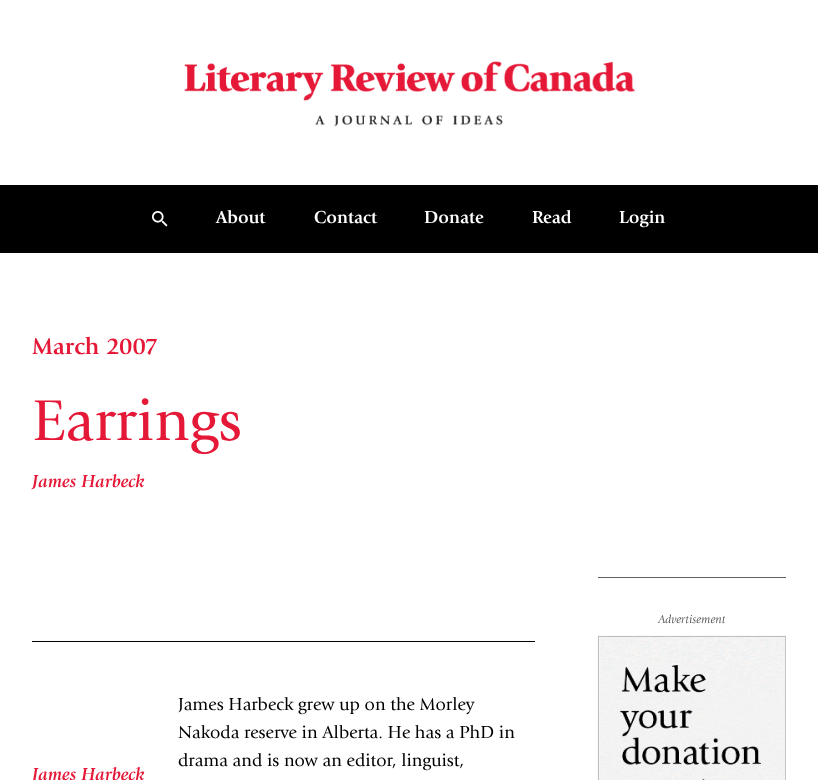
<!DOCTYPE html>
<meta charset="utf-8">
<style>body { margin: 0 } canvas { display: block }</style>
<canvas id="canvas" width="818" height="780"></canvas>
<img id="img1" src="images/1.png" hidden>
<img id="img2" src="images/2.png" hidden>
<img id="img3" src="images/3.png" hidden>
<script>
window.onload = function () {
    const canvas = document.getElementById('canvas');
    const context = canvas.getContext('2d');
    context.miterLimit = 4;
    context.fontKerning = 'normal';

    context.fillStyle = 'rgb(255, 255, 255)';
    context.fillRect(0, 0, 818, 780);
    context.drawImage(document.getElementById('img1'), 184, 61, 451, 66);
    context.fillStyle = 'rgb(0, 0, 0)';
    context.fillRect(0, 185, 818, 68);
    context.drawImage(document.getElementById('img2'), 152, 211, 16, 16);
    context.fillStyle = 'rgb(96, 96, 96)';
    context.fillRect(598, 577, 188, 1);
    context.drawImage(document.getElementById('img3'), 597, 635, 189, 145);
    context.fillStyle = 'rgb(0, 0, 0)';
    context.fillRect(32, 641, 503, 1);
    context.font = 'bold 18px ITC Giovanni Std';
    context.fillStyle = 'rgb(255, 255, 255)';
    context.fillText('About', 216, 223);
    context.fillText('Contact', 314, 223);
    context.fillText('Donate', 424, 223);
    context.fillText('Read', 532, 223);
    context.fillText('Login', 619, 223);
    context.font = 'bold 24px ITC Giovanni Std';
    context.fillStyle = 'rgb(229, 24, 55)';
    context.fillText('March 2007', 32, 354);
    context.font = '60px ITC Giovanni Std';
    context.fillText('Earrings', 32, 440);
    context.font = 'italic bold 18px ITC Giovanni Std';
    context.fillText('James Harbeck', 32, 487);
    context.font = 'italic 12px ITC Giovanni Std';
    context.fillStyle = 'rgb(96, 96, 96)';
    context.fillText('Advertisement', 658, 623);
    context.font = '18px ITC Giovanni Std';
    context.fillStyle = 'rgb(0, 0, 0)';
    context.fillText('James Harbeck grew up on the Morley', 178, 710);
    context.fillText('Nakoda reserve in Alberta. He has a PhD in', 178, 738);
    context.fillText('drama and is now an editor, linguist,', 178, 766);
    context.font = 'italic bold 18px ITC Giovanni Std';
    context.fillStyle = 'rgb(229, 24, 55)';
    context.fillText('James Harbeck', 32, 780);
};
</script>
